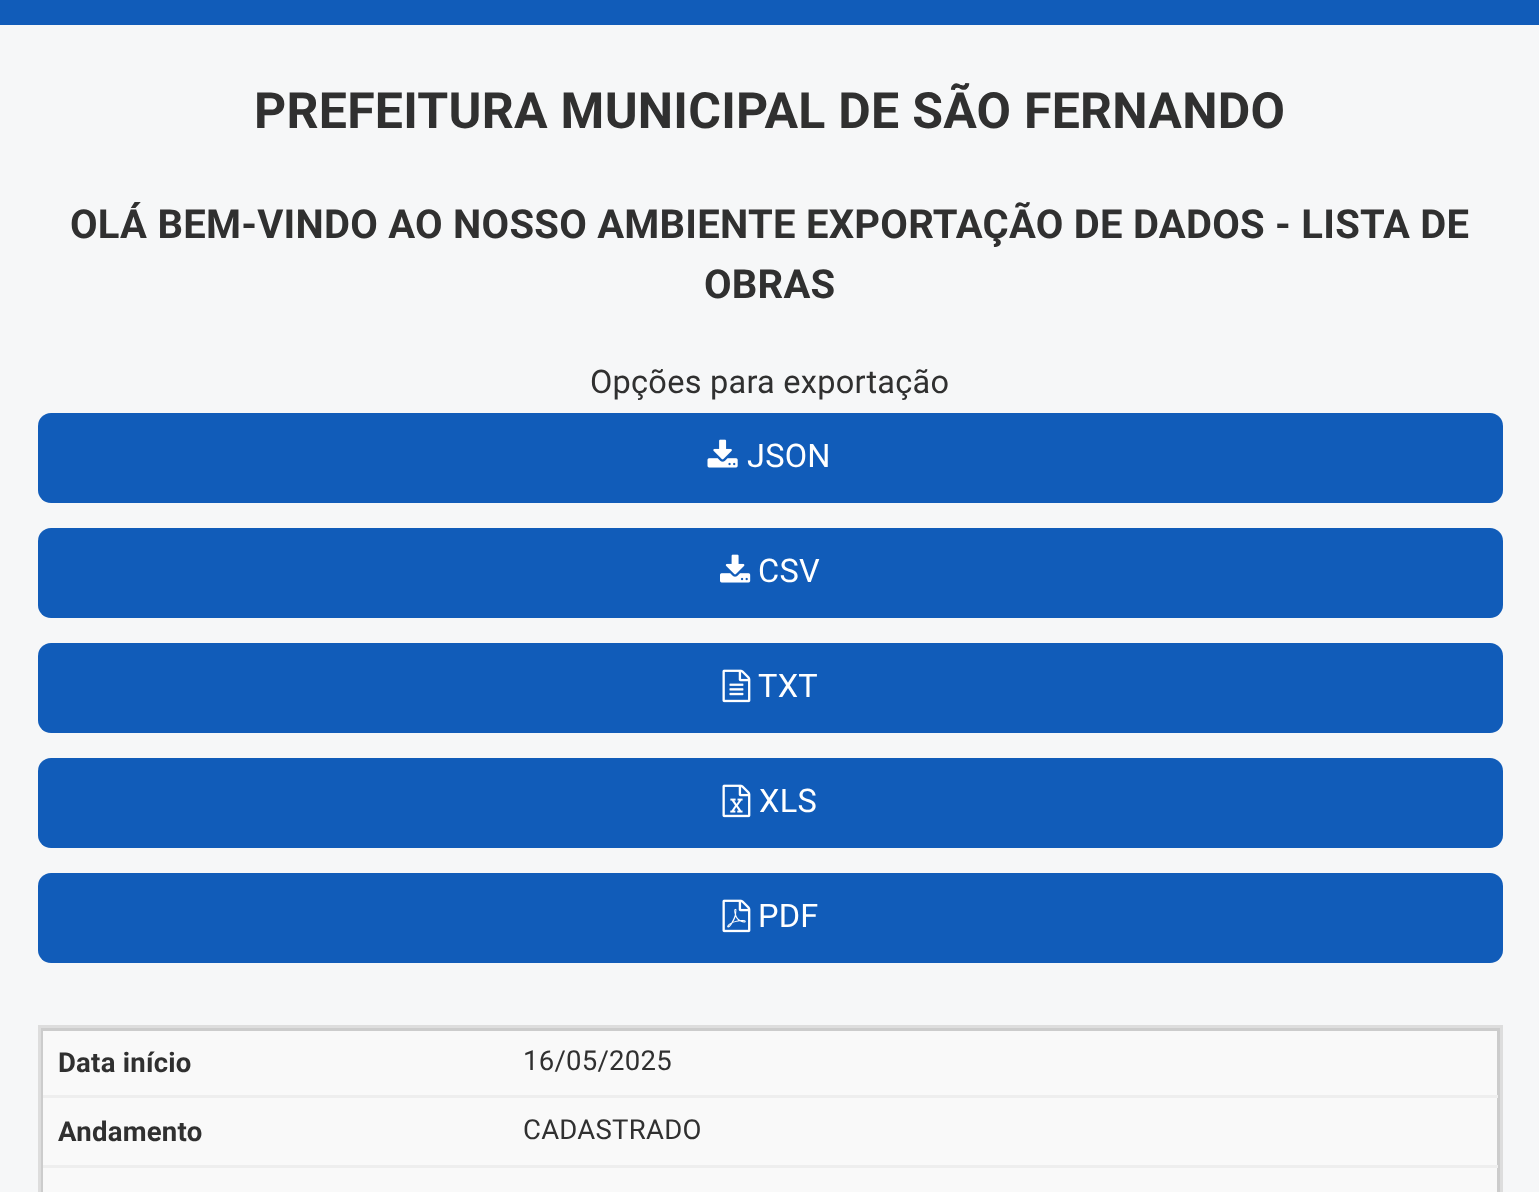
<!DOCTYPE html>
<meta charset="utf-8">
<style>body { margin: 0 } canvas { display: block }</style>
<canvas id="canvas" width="1539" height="1192"></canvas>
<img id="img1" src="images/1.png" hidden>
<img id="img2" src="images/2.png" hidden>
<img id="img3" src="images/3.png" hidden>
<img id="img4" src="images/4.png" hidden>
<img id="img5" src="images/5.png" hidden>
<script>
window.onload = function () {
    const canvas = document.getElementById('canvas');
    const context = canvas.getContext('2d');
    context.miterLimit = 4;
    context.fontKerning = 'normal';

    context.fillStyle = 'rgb(246, 247, 248)';
    context.fillRect(0, 0, 1539, 1192);
    context.fillStyle = 'rgb(17, 92, 185)';
    context.fillRect(0, 0, 1539, 25);
    context.beginPath();
    context.roundRect(38, 413, 1465, 90, 13);
    context.fill();
    context.drawImage(document.getElementById('img1'), 707, 439, 31, 29);
    context.beginPath();
    context.roundRect(38, 528, 1465, 90, 13);
    context.fill();
    context.drawImage(document.getElementById('img2'), 720, 554, 31, 29);
    context.beginPath();
    context.roundRect(38, 643, 1465, 90, 13);
    context.fill();
    context.drawImage(document.getElementById('img3'), 722, 669, 29, 34);
    context.beginPath();
    context.roundRect(38, 758, 1465, 90, 13);
    context.fill();
    context.drawImage(document.getElementById('img4'), 722, 784, 29, 34);
    context.beginPath();
    context.roundRect(38, 873, 1465, 90, 13);
    context.fill();
    context.drawImage(document.getElementById('img5'), 722, 899, 29, 34);
    context.fillStyle = 'rgb(221, 221, 221)';
    context.fillRect(38, 1025, 1465, 3);
    context.fillRect(1500, 1025, 3, 167);
    context.fillStyle = 'rgb(249, 249, 249)';
    context.beginPath();
    context.rect(41.5, 1029.5, 1457, 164);
    context.fill();
    context.strokeStyle = 'rgb(204, 204, 204)';
    context.lineWidth = 3;
    context.stroke();
    context.fillStyle = 'rgb(221, 221, 221)';
    context.fillRect(38, 1025, 3, 167);
    context.fillStyle = 'rgb(238, 238, 238)';
    context.fillRect(43, 1095, 1455, 3);
    context.fillRect(43, 1165, 1455, 3);
    context.letterSpacing = '0.25px';
    context.font = 'bold 50px Roboto';
    context.fillStyle = 'rgb(48, 48, 48)';
    context.fillText('PREFEITURA MUNICIPAL DE SÃO FERNANDO', 254, 128);
    context.font = 'bold 40px Roboto';
    context.fillText('OLÁ BEM-VINDO AO NOSSO AMBIENTE EXPORTAÇÃO DE DADOS - LISTA DE', 70, 238);
    context.fillText('OBRAS', 704, 298);
    context.font = '32.5px Roboto';
    context.fillText('Opções para exportação', 590, 393);
    context.fillStyle = 'rgb(255, 255, 255)';
    context.fillText('JSON', 747, 467);
    context.fillText('CSV', 758, 582);
    context.fillText('TXT', 758, 697);
    context.fillText('XLS', 759, 812);
    context.fillText('PDF', 758, 927);
    context.font = 'bold 27.5px Roboto';
    context.fillStyle = 'rgb(48, 48, 48)';
    context.fillText('Data início', 58, 1072);
    context.font = '27.5px Roboto';
    context.fillText('16/05/2025', 523, 1070);
    context.font = 'bold 27.5px Roboto';
    context.fillText('Andamento', 58, 1141);
    context.font = '27.5px Roboto';
    context.fillText('CADASTRADO', 523, 1139);
};
</script>
